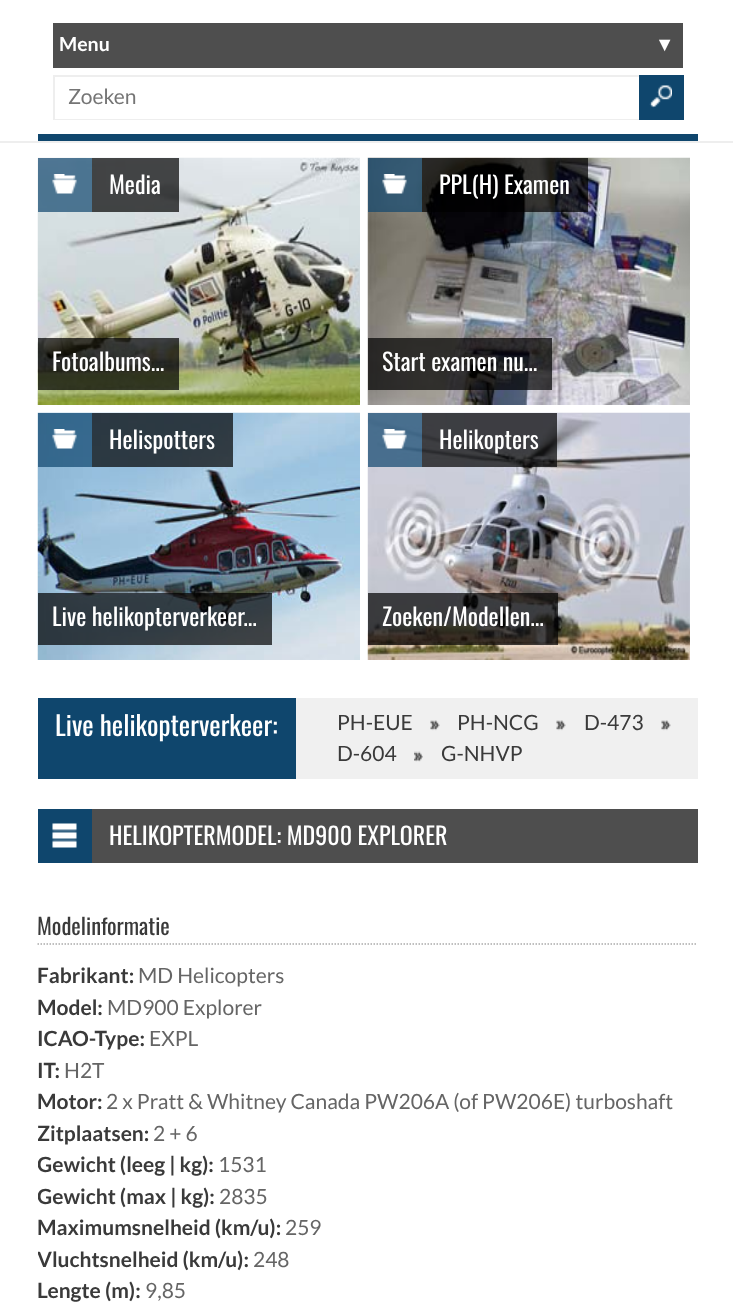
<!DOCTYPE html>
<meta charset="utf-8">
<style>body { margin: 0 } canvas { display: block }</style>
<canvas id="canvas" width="733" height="1313"></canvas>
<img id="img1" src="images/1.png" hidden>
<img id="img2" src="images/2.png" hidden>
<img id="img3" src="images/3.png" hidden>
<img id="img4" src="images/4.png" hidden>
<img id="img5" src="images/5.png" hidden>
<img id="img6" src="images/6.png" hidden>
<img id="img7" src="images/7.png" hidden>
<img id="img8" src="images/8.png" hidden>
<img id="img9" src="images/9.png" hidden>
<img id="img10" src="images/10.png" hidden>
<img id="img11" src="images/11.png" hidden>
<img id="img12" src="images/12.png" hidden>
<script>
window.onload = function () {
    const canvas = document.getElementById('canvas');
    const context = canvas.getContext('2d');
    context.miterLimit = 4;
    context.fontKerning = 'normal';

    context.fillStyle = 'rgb(255, 255, 255)';
    context.fillRect(0, 0, 733, 1313);
    context.fillStyle = 'rgb(238, 238, 238)';
    context.fillRect(0, 141, 733, 2);
    context.fillStyle = 'rgb(15, 70, 109)';
    context.fillRect(38, 134, 660, 7);
    context.fillStyle = 'rgb(78, 78, 78)';
    context.fillRect(53, 23, 630, 45);
    context.fillStyle = 'rgb(238, 238, 238)';
    context.fillRect(53, 75, 586, 2);
    context.fillRect(53, 119, 586, 1);
    context.fillRect(53, 75, 2, 45);
    context.fillStyle = 'rgb(15, 70, 109)';
    context.fillRect(639, 75, 45, 45);
    context.drawImage(document.getElementById('img1'), 649, 85, 23, 23);
    context.drawImage(document.getElementById('img2'), 37, 157, 323, 248);
    context.fillStyle = 'rgba(15, 70, 109, 0.7)';
    context.fillRect(38, 158, 54, 54);
    context.drawImage(document.getElementById('img3'), 52, 174, 25, 20);
    context.fillStyle = 'rgba(0, 0, 0, 0.7)';
    context.fillRect(92, 158, 87, 54);
    context.fillRect(38, 338, 141, 52);
    context.drawImage(document.getElementById('img4'), 367, 157, 323, 248);
    context.fillStyle = 'rgba(15, 70, 109, 0.7)';
    context.fillRect(368, 158, 54, 54);
    context.drawImage(document.getElementById('img5'), 382, 174, 25, 20);
    context.fillStyle = 'rgba(0, 0, 0, 0.7)';
    context.fillRect(422, 158, 166, 54);
    context.fillRect(368, 338, 184, 52);
    context.drawImage(document.getElementById('img6'), 37, 412, 323, 248);
    context.fillStyle = 'rgba(15, 70, 109, 0.7)';
    context.fillRect(38, 413, 54, 54);
    context.drawImage(document.getElementById('img7'), 52, 429, 25, 20);
    context.fillStyle = 'rgba(0, 0, 0, 0.7)';
    context.fillRect(92, 413, 141, 54);
    context.fillRect(38, 593, 234, 52);
    context.drawImage(document.getElementById('img8'), 367, 412, 323, 248);
    context.fillStyle = 'rgba(15, 70, 109, 0.7)';
    context.fillRect(368, 413, 54, 54);
    context.drawImage(document.getElementById('img9'), 382, 429, 25, 20);
    context.fillStyle = 'rgba(0, 0, 0, 0.7)';
    context.fillRect(422, 413, 135, 54);
    context.fillRect(368, 593, 190, 52);
    context.fillStyle = 'rgb(240, 240, 240)';
    context.fillRect(296, 698, 402, 81);
    context.fillStyle = 'rgb(15, 70, 109)';
    context.fillRect(38, 698, 258, 81);
    context.drawImage(document.getElementById('img10'), 430, 720, 10, 11);
    context.drawImage(document.getElementById('img10'), 556, 720, 10, 11);
    context.drawImage(document.getElementById('img10'), 661, 720, 10, 11);
    context.drawImage(document.getElementById('img11'), 414, 751, 9, 11);
    context.fillStyle = 'rgb(78, 78, 78)';
    context.fillRect(92, 809, 606, 54);
    context.fillStyle = 'rgb(15, 70, 109)';
    context.fillRect(38, 809, 54, 54);
    context.drawImage(document.getElementById('img12'), 52, 823, 25, 25);
    context.beginPath();
    context.moveTo(37.5, 944);
    context.lineTo(697.5, 944);
    context.strokeStyle = 'rgb(170, 170, 170)';
    context.lineWidth = 1.5;
    context.setLineDash([1.5, 1.5]);
    context.stroke();
    context.font = 'bold 19.5px Lato';
    context.fillStyle = 'rgb(255, 255, 255)';
    context.fillText('Menu', 59, 51);
    context.font = 'bold 19.5px Liberation Sans';
    context.fillText('▼', 655, 51);
    context.font = '21px Lato';
    context.fillStyle = 'rgb(117, 117, 117)';
    context.fillText('Zoeken', 68, 104);
    context.font = '24px Oswald';
    context.fillStyle = 'rgb(255, 255, 255)';
    context.fillText('Media', 109, 194);
    context.fillText('Fotoalbums...', 52, 371);
    context.fillText('PPL(H) Examen', 439, 194);
    context.fillText('Start examen nu...', 382, 371);
    context.fillText('Helispotters', 109, 449);
    context.fillText('Live helikopterverkeer...', 52, 626);
    context.fillText('Helikopters', 439, 449);
    context.fillText('Zoeken/Modellen...', 382, 626);
    context.font = '27px Oswald';
    context.fillText('Live helikopterverkeer:', 55, 736);
    context.font = '21px Lato';
    context.fillStyle = 'rgb(58, 58, 58)';
    context.fillText('PH-EUE', 337, 730);
    context.fillText('PH-NCG', 457, 730);
    context.fillText('D-473', 584, 730);
    context.fillText('D-604', 337, 761);
    context.fillText('G-NHVP', 441, 761);
    context.font = '24px Oswald';
    context.fillStyle = 'rgb(255, 255, 255)';
    context.fillText('HELIKOPTERMODEL: MD900 EXPLORER', 109, 845);
    context.font = '22.5px Oswald';
    context.fillStyle = 'rgb(58, 58, 58)';
    context.fillText('Modelinformatie', 37, 935);
    context.font = 'bold 21px Lato';
    context.fillText('Fabrikant:', 37, 983);
    context.font = '21px Lato';
    context.fillStyle = 'rgb(101, 101, 101)';
    context.fillText('MD Helicopters', 138, 983);
    context.font = 'bold 21px Lato';
    context.fillStyle = 'rgb(58, 58, 58)';
    context.fillText('Model:', 37, 1015);
    context.font = '21px Lato';
    context.fillStyle = 'rgb(101, 101, 101)';
    context.fillText('MD900 Explorer', 107, 1015);
    context.font = 'bold 21px Lato';
    context.fillStyle = 'rgb(58, 58, 58)';
    context.fillText('ICAO-Type:', 37, 1046);
    context.font = '21px Lato';
    context.fillStyle = 'rgb(101, 101, 101)';
    context.fillText('EXPL', 149, 1046);
    context.font = 'bold 21px Lato';
    context.fillStyle = 'rgb(58, 58, 58)';
    context.fillText('IT:', 37, 1078);
    context.font = '21px Lato';
    context.fillStyle = 'rgb(101, 101, 101)';
    context.fillText('H2T', 64, 1078);
    context.font = 'bold 21px Lato';
    context.fillStyle = 'rgb(58, 58, 58)';
    context.fillText('Motor:', 37, 1109);
    context.font = '21px Lato';
    context.fillStyle = 'rgb(101, 101, 101)';
    context.fillText('2 x Pratt & Whitney Canada PW206A (of PW206E) turboshaft', 106, 1109);
    context.save();
    context.beginPath();
    context.rect(38, 809, 660, 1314);
    context.clip();
    context.font = 'bold 21px Lato';
    context.fillStyle = 'rgb(58, 58, 58)';
    context.fillText('Zitplaatsen:', 37, 1141);
    context.restore();
    context.fillText('2 + 6', 153, 1141);
    context.save();
    context.beginPath();
    context.rect(38, 809, 660, 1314);
    context.clip();
    context.font = 'bold 21px Lato';
    context.fillStyle = 'rgb(58, 58, 58)';
    context.fillText('Gewicht (leeg | kg):', 37, 1172);
    context.restore();
    context.fillText('1531', 218, 1172);
    context.save();
    context.beginPath();
    context.rect(38, 809, 660, 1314);
    context.clip();
    context.font = 'bold 21px Lato';
    context.fillStyle = 'rgb(58, 58, 58)';
    context.fillText('Gewicht (max | kg):', 37, 1204);
    context.restore();
    context.fillText('2835', 219, 1204);
    context.font = 'bold 21px Lato';
    context.fillStyle = 'rgb(58, 58, 58)';
    context.fillText('Maximumsnelheid (km/u):', 37, 1235);
    context.font = '21px Lato';
    context.fillStyle = 'rgb(101, 101, 101)';
    context.fillText('259', 285, 1235);
    context.save();
    context.beginPath();
    context.rect(38, 809, 660, 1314);
    context.clip();
    context.font = 'bold 21px Lato';
    context.fillStyle = 'rgb(58, 58, 58)';
    context.fillText('Vluchtsnelheid (km/u):', 37, 1267);
    context.restore();
    context.fillText('248', 253, 1267);
    context.font = 'bold 21px Lato';
    context.fillStyle = 'rgb(58, 58, 58)';
    context.fillText('Lengte (m):', 37, 1298);
    context.font = '21px Lato';
    context.fillStyle = 'rgb(101, 101, 101)';
    context.fillText('9,85', 145, 1298);
};
</script>
